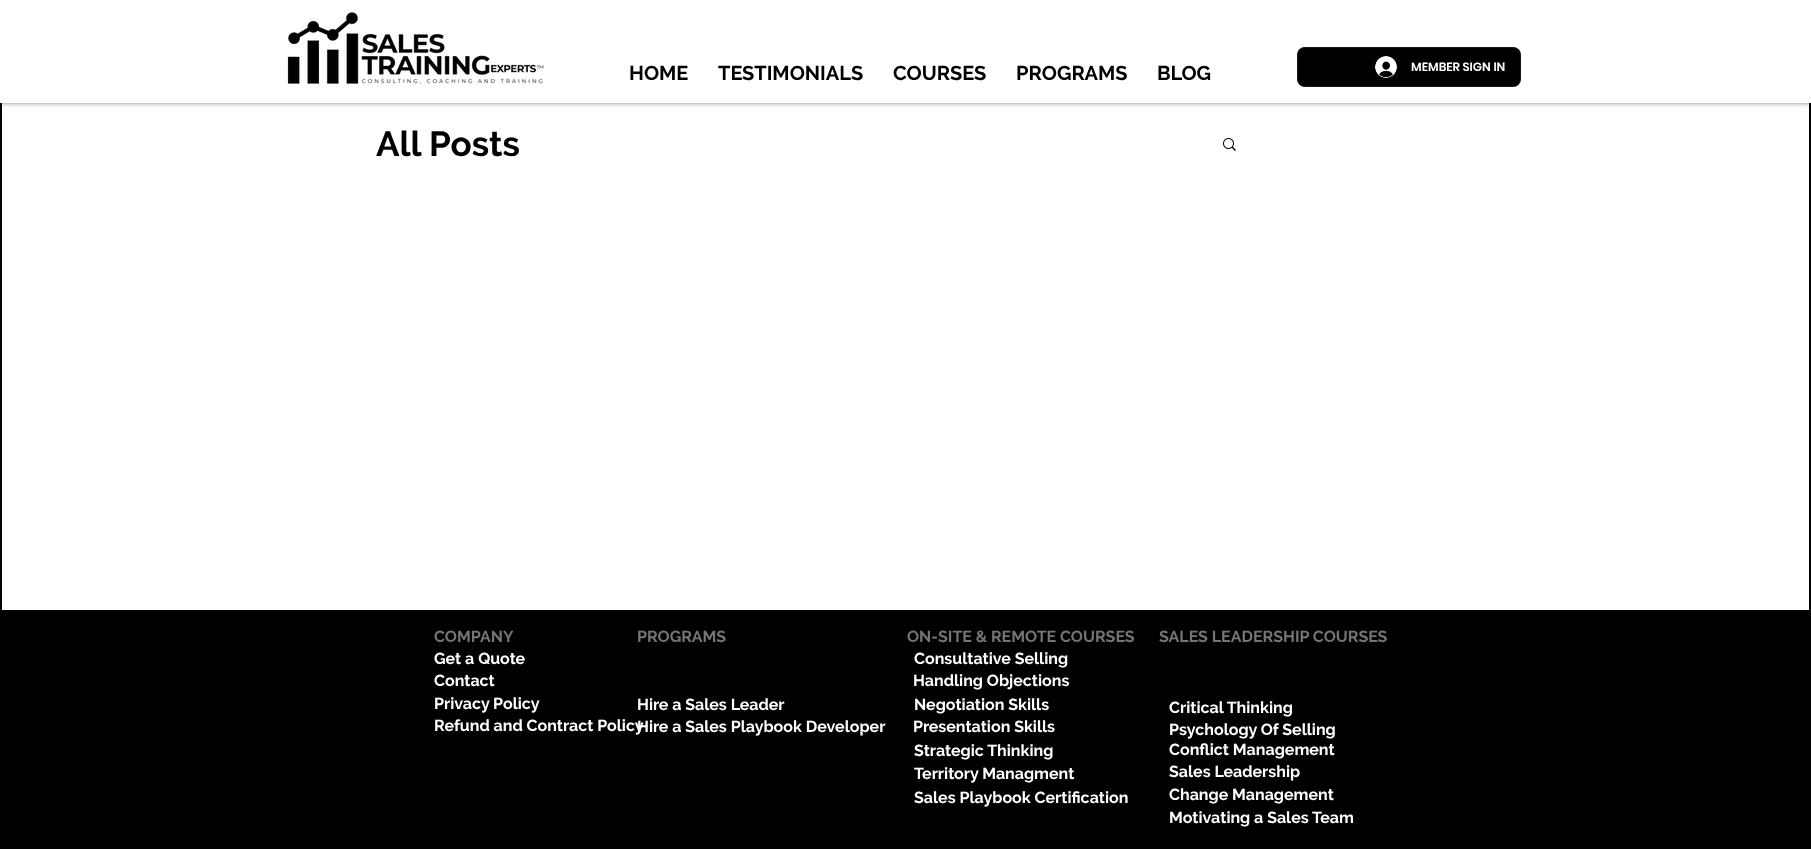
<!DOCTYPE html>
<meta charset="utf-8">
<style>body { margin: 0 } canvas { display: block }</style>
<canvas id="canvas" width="1811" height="849"></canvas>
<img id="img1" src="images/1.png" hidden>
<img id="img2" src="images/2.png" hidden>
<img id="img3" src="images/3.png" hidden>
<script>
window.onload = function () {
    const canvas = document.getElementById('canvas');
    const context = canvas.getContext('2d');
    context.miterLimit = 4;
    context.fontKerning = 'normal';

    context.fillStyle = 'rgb(0, 0, 0)';
    context.fillRect(0, 0, 1811, 849);
    context.fillStyle = 'rgb(255, 255, 255)';
    context.fillRect(2, 103, 1807, 507);
    context.fillStyle = 'rgba(0, 0, 0, 0.5)';
    context.filter = 'blur(2.5px)';
    context.beginPath();
    context.rect(0, 0, 1811, 103);
    context.fill();
    context.filter = 'none';
    context.fillStyle = 'rgb(255, 255, 255)';
    context.fillRect(0, 0, 1811, 103);
    context.drawImage(document.getElementById('img1'), 287, 12, 257, 72);
    context.fillStyle = 'rgb(0, 0, 0)';
    context.beginPath();
    context.roundRect(1297, 47, 224, 40, 8);
    context.fill();
    context.beginPath();
    context.roundRect(1297.5, 47.5, 223, 39, 7.5);
    context.strokeStyle = 'rgba(66, 66, 66, 0.35)';
    context.stroke();
    context.drawImage(document.getElementById('img2'), 1375, 56, 22, 22);
    context.drawImage(document.getElementById('img3'), 1223, 138, 13, 13);
    context.font = 'bold 20px Raleway';
    context.fillText('HOME', 629, 80);
    context.fillText('TESTIMONIALS', 718, 80);
    context.fillText('COURSES', 893, 80);
    context.fillText('PROGRAMS', 1016, 80);
    context.fillText('BLOG', 1157, 80);
    context.font = '600 12px Poppins';
    context.fillStyle = 'rgb(255, 255, 255)';
    context.fillText('MEMBER SIGN IN', 1411, 71);
    context.font = 'bold 35px Raleway';
    context.fillStyle = 'rgb(0, 0, 0)';
    context.fillText('All Posts', 376, 156);
    context.font = 'bold 16px Raleway';
    context.fillStyle = 'rgb(117, 117, 117)';
    context.fillText('COMPANY', 434, 642);
    context.fillStyle = 'rgb(255, 255, 255)';
    context.fillText('Get a Quote', 434, 664);
    context.fillText('Contact', 434, 686);
    context.fillText('Privacy Policy', 434, 709);
    context.fillText('Refund and Contract Policy', 434, 731);
    context.fillStyle = 'rgb(117, 117, 117)';
    context.fillText('PROGRAMS', 637, 642);
    context.fillText('ON-SITE & REMOTE COURSES', 907, 642);
    context.fillStyle = 'rgb(255, 255, 255)';
    context.fillText('Consultative Selling', 914, 664);
    context.fillText('Handling Objections', 913, 686);
    context.fillText('Negotiation Skills', 914, 710);
    context.fillText('Presentation Skills', 913, 732);
    context.fillText('Strategic Thinking', 914, 756);
    context.fillText('Territory Managment', 914, 779);
    context.fillText('Sales Playbook Certification', 914, 803);
    context.fillStyle = 'rgb(117, 117, 117)';
    context.fillText('SALES LEADERSHIP COURSES', 1159, 642);
    context.fillStyle = 'rgb(255, 255, 255)';
    context.fillText('Hire a Sales Leader', 637, 710);
    context.fillText('Critical Thinking', 1169, 713);
    context.fillText('Hire a Sales Playbook Developer', 637, 732);
    context.fillText('Psychology Of Selling', 1169, 735);
    context.fillText('Conflict Management', 1169, 755);
    context.fillText('Sales Leadership', 1169, 777);
    context.fillText('Change Management', 1169, 800);
    context.fillText('Motivating a Sales Team', 1169, 823);
};
</script>
